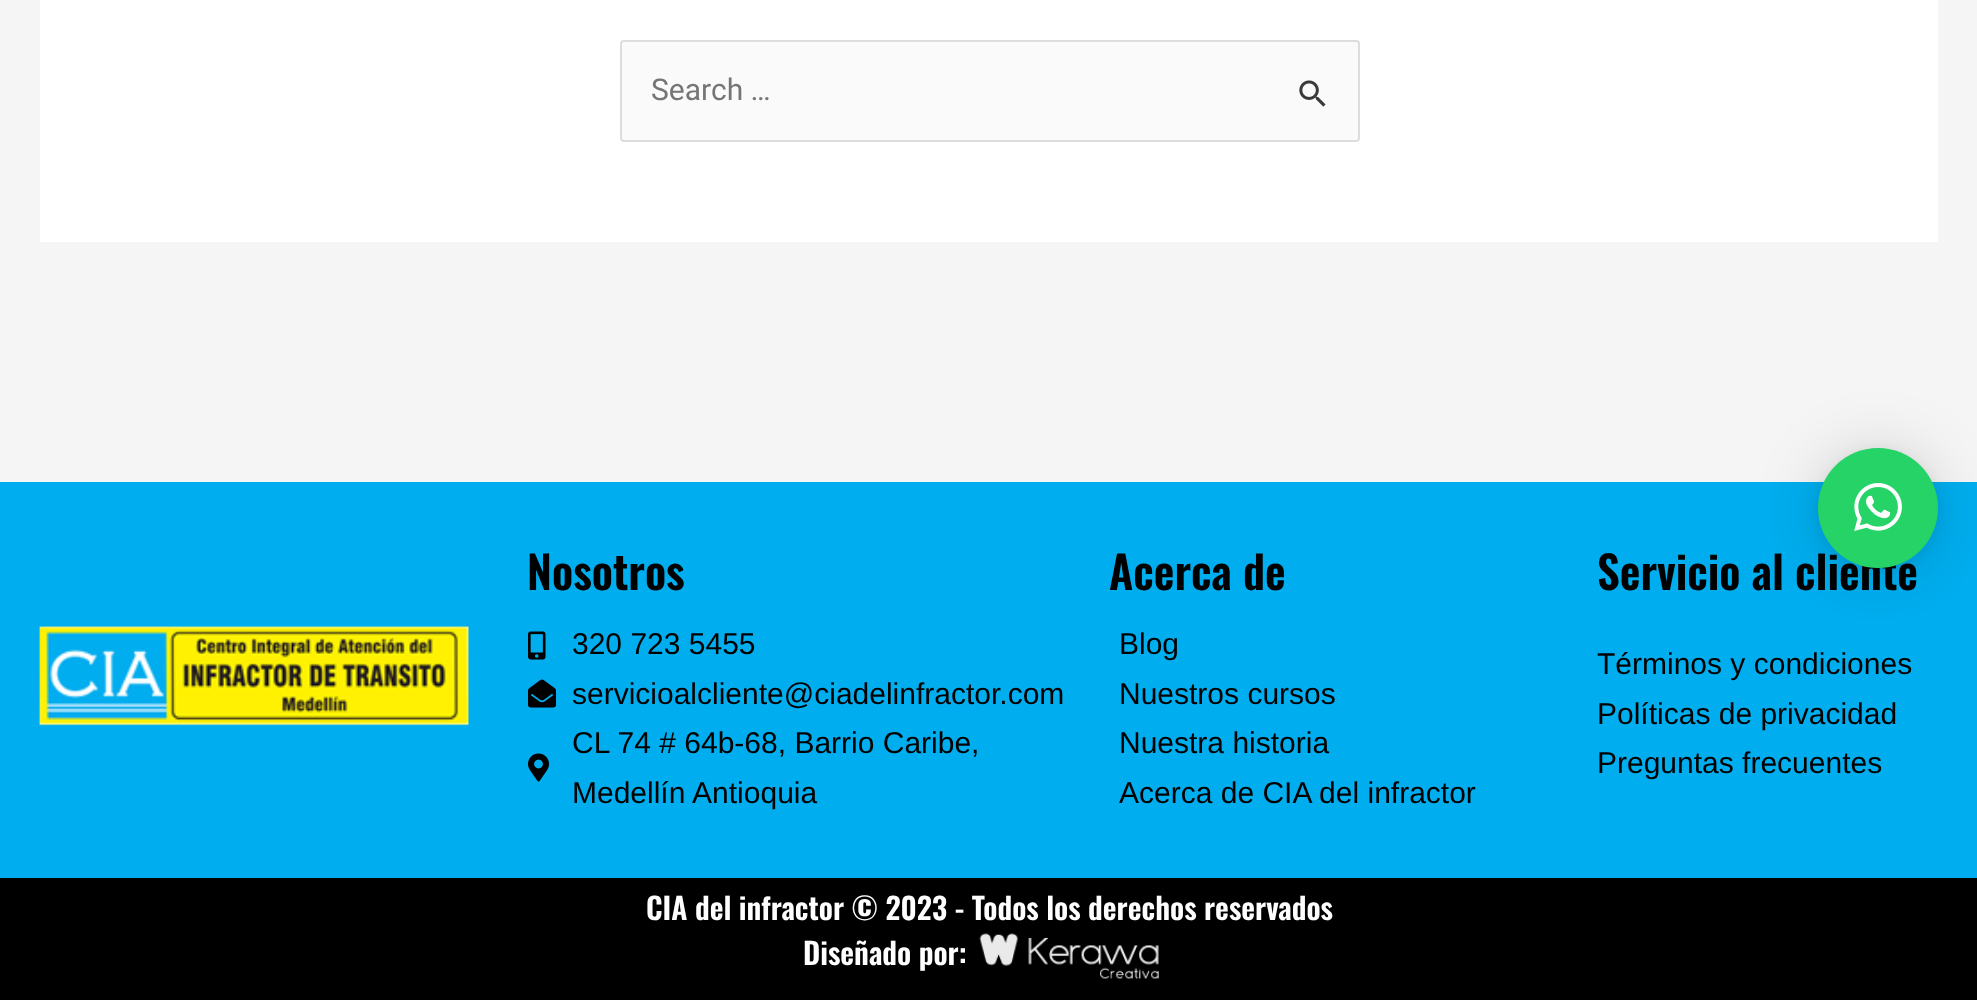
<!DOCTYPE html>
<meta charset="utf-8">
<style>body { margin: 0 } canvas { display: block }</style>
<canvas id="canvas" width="1977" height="1000"></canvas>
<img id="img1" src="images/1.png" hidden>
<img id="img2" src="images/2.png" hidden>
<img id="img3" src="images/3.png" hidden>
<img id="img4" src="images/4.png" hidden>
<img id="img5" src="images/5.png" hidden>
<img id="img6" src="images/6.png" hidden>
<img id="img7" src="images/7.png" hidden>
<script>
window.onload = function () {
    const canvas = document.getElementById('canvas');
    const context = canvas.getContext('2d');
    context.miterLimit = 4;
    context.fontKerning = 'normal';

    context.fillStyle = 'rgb(245, 245, 245)';
    context.fillRect(0, 0, 1977, 1000);
    context.fillStyle = 'rgb(255, 255, 255)';
    context.fillRect(40, 0, 1898, 242);
    context.fillStyle = 'rgb(250, 250, 250)';
    context.beginPath();
    context.roundRect(621, 41, 738, 100, 3);
    context.fill();
    context.strokeStyle = 'rgb(221, 221, 221)';
    context.lineWidth = 2;
    context.stroke();
    context.drawImage(document.getElementById('img1'), 1299, 80, 27, 27);
    context.fillStyle = 'rgb(0, 174, 239)';
    context.fillRect(0, 482, 1977, 396);
    context.drawImage(document.getElementById('img2'), 39, 626, 430, 100);
    context.drawImage(document.getElementById('img3'), 528, 631, 18, 29);
    context.drawImage(document.getElementById('img4'), 528, 679, 28, 29);
    context.drawImage(document.getElementById('img5'), 528, 753, 21, 29);
    context.fillStyle = 'rgb(0, 0, 0)';
    context.fillRect(0, 878, 1977, 122);
    context.drawImage(document.getElementById('img6'), 979, 933, 180, 46);
    context.fillStyle = 'rgba(0, 0, 0, 0.16)';
    context.filter = 'blur(32px)';
    context.beginPath();
    context.roundRect(1818, 452, 120, 120, 60);
    context.fill();
    context.filter = 'none';
    context.fillStyle = 'rgba(0, 0, 0, 0.06)';
    context.filter = 'blur(6px)';
    context.beginPath();
    context.roundRect(1818, 450, 120, 120, 60);
    context.fill();
    context.filter = 'none';
    context.font = '30px Roboto';
    context.fillStyle = 'rgb(117, 117, 117)';
    context.fillText('Search …', 651, 100);
    context.font = '600 45px Oswald';
    context.fillStyle = 'rgb(0, 0, 0)';
    context.fillText('Nosotros', 527, 590);
    context.font = '30px Liberation Sans';
    context.fillText('320 723 5455', 572, 654);
    context.fillText('servicioalcliente@ciadelinfractor.com', 572, 704);
    context.fillText('CL 74 # 64b-68, Barrio Caribe,', 572, 753);
    context.fillText('Medellín Antioquia', 572, 803);
    context.font = '600 45px Oswald';
    context.fillText('Acerca de', 1109, 590);
    context.font = '30px Liberation Sans';
    context.fillText('Blog', 1119, 654);
    context.fillText('Nuestros cursos', 1119, 704);
    context.fillText('Nuestra historia', 1119, 753);
    context.fillText('Acerca de CIA del infractor', 1119, 803);
    context.font = '600 45px Oswald';
    context.fillText('Servicio al cliente', 1597, 590);
    context.font = '30px Liberation Sans';
    context.fillText('Términos y condiciones', 1597, 674);
    context.fillText('Políticas de privacidad', 1597, 724);
    context.fillText('Preguntas frecuentes', 1597, 773);
    context.font = '600 30px Oswald';
    context.fillStyle = 'rgb(255, 255, 255)';
    context.fillText('CIA del infractor © 2023 - Todos los derechos reservados', 646, 920);
    context.fillText('Diseñado por:', 803, 965);
    context.fillStyle = 'rgb(37, 211, 102)';
    context.beginPath();
    context.arc(1878, 508, 60, 0, 2 * Math.PI);
    context.fill();
    context.drawImage(document.getElementById('img7'), 1854, 483, 48, 48);
};
</script>
